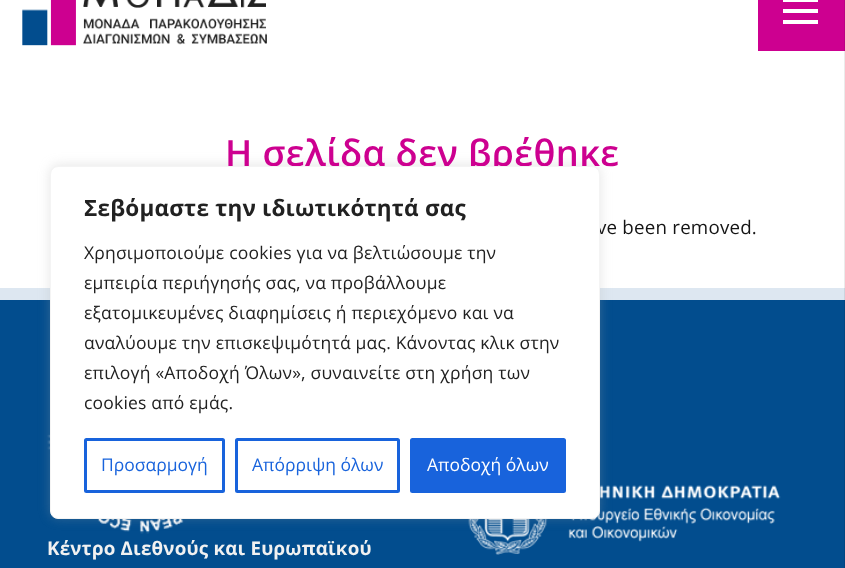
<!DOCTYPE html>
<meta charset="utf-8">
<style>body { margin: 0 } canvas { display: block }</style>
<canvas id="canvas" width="845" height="568"></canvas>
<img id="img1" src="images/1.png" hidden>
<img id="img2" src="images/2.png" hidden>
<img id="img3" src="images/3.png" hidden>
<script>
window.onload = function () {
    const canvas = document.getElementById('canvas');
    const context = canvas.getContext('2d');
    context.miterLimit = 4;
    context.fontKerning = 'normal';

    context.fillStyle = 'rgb(255, 255, 255)';
    context.fillRect(0, 0, 845, 568);
    context.drawImage(document.getElementById('img1'), 22, 0, 245, 46);
    context.fillStyle = 'rgb(205, 0, 144)';
    context.fillRect(758, 0, 87, 51);
    context.fillStyle = 'rgb(255, 255, 255)';
    context.fillRect(783, 9, 35, 4);
    context.fillRect(783, 0, 35, 2);
    context.fillRect(783, 20, 35, 4);
    context.fillStyle = 'rgb(2, 77, 142)';
    context.fillRect(0, 300, 845, 268);
    context.fillStyle = 'rgb(221, 231, 241)';
    context.fillRect(0, 288, 845, 12);
    context.fillStyle = 'rgba(0, 0, 0, 0.08)';
    context.beginPath();
    context.moveTo(844, 0);
    context.lineTo(844, 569);
    context.lineTo(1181, 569);
    context.lineTo(845, 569);
    context.lineTo(845, 0);
    context.closePath();
    context.fill();
    context.drawImage(document.getElementById('img2'), 47, 434, 137, 100);
    context.drawImage(document.getElementById('img3'), 468, 485, 313, 70);
    context.fillStyle = 'rgba(172, 171, 171, 0.3)';
    context.filter = 'blur(6px)';
    context.beginPath();
    context.roundRect(50, 165, 550, 353, 8);
    context.fill();
    context.filter = 'none';
    context.letterSpacing = '0.4px';
    context.font = '600 36.25px Open Sans';
    context.fillStyle = 'rgb(205, 0, 144)';
    context.fillText('Η σελίδα δεν βρέθηκε', 225, 166);
    context.letterSpacing = '0.2px';
    context.font = '18.75px Open Sans';
    context.fillStyle = 'rgb(20, 20, 20)';
    context.fillText('ve been removed.', 597, 234);
    context.fillStyle = 'rgb(255, 255, 255)';
    context.beginPath();
    context.roundRect(50.5, 166.5, 549, 352, 7.5);
    context.fill();
    context.strokeStyle = 'rgb(244, 244, 244)';
    context.stroke();
    context.font = 'bold 22.5px Open Sans';
    context.fillStyle = 'rgb(33, 33, 33)';
    context.fillText('Σεβόμαστε την ιδιωτικότητά σας', 84, 216);
    context.font = '17.5px Open Sans';
    context.fillText('Χρησιμοποιούμε cookies για να βελτιώσουμε την', 84, 259);
    context.fillText('εμπειρία περιήγησής σας, να προβάλλουμε', 84, 289);
    context.fillText('εξατομικευμένες διαφημίσεις ή περιεχόμενο και να', 84, 319);
    context.fillText('αναλύουμε την επισκεψιμότητά μας. Κάνοντας κλικ στην', 84, 349);
    context.fillText('επιλογή «Αποδοχή Όλων», συναινείτε στη χρήση των', 84, 379);
    context.fillText('cookies από εμάς.', 84, 409);
    context.beginPath();
    context.roundRect(85.5, 439.5, 138, 52, 1);
    context.strokeStyle = 'rgb(24, 99, 220)';
    context.lineWidth = 3;
    context.stroke();
    context.letterSpacing = '0px';
    context.fillStyle = 'rgb(24, 99, 220)';
    context.fillText('Προσαρμογή', 101, 471);
    context.beginPath();
    context.roundRect(236.5, 439.5, 162, 52, 1);
    context.stroke();
    context.fillText('Απόρριψη όλων', 252, 471);
    context.beginPath();
    context.roundRect(411.5, 439.5, 153, 52, 1);
    context.fill();
    context.stroke();
    context.fillStyle = 'rgb(255, 255, 255)';
    context.fillText('Αποδοχή όλων', 427, 471);
    context.letterSpacing = '0.2px';
    context.font = 'bold 18.75px Open Sans';
    context.fillStyle = 'rgb(241, 241, 241)';
    context.fillText('Κέντρο Διεθνούς και Ευρωπαϊκού', 47, 555);
};
</script>
